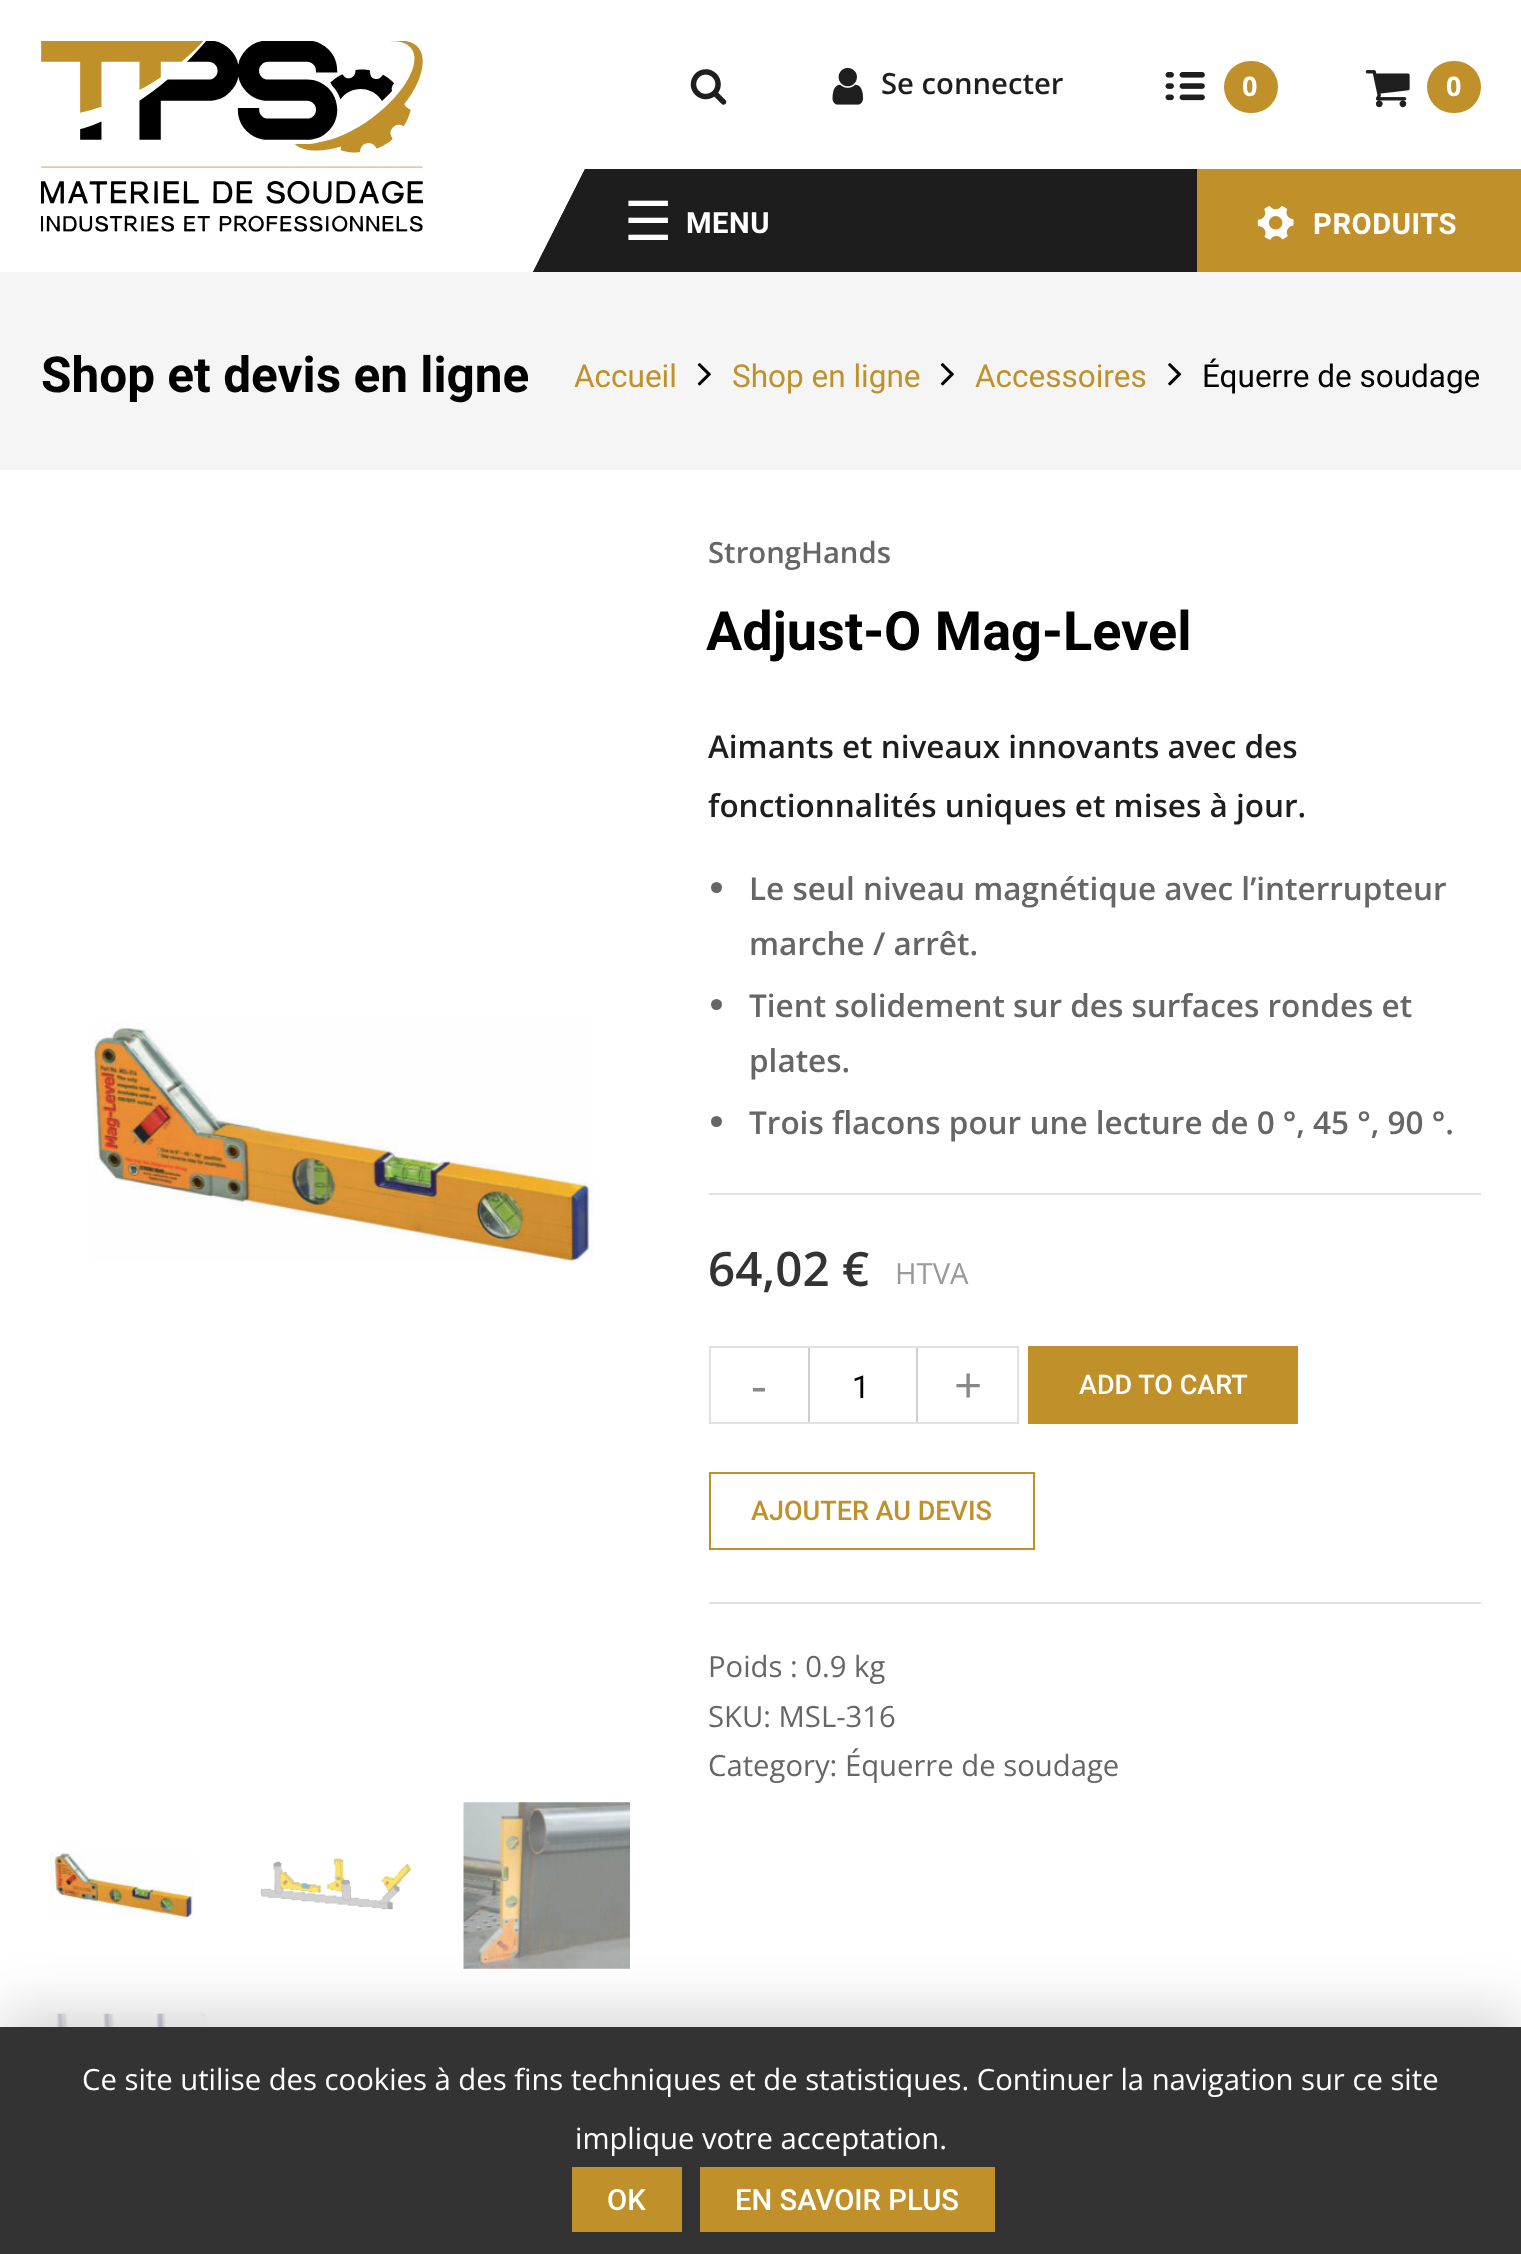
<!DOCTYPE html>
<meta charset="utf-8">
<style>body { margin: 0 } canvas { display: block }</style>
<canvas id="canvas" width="1521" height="2254"></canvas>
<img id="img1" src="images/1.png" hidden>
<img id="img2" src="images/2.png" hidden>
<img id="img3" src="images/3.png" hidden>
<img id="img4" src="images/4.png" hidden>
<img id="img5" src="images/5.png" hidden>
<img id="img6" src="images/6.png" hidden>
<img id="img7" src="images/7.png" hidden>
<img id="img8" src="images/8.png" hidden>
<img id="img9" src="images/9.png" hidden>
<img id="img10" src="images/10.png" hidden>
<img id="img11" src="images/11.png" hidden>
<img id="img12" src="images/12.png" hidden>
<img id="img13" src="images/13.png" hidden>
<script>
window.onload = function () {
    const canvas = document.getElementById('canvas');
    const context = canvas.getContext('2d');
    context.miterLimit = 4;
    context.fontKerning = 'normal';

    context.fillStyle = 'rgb(255, 255, 255)';
    context.fillRect(0, 0, 1521, 2254);
    context.drawImage(document.getElementById('img1'), 41, 41, 382, 191);
    context.drawImage(document.getElementById('img2'), 690, 69, 37, 36);
    context.drawImage(document.getElementById('img3'), 832, 67, 31, 38);
    context.drawImage(document.getElementById('img4'), 1165, 72, 40, 29);
    context.fillStyle = 'rgb(192, 144, 42)';
    context.beginPath();
    context.roundRect(1224, 61, 54, 52, 26);
    context.fill();
    context.drawImage(document.getElementById('img5'), 1365, 70, 45, 38);
    context.beginPath();
    context.roundRect(1427, 61, 54, 52, 26);
    context.fill();
    context.fillStyle = 'rgb(29, 29, 29)';
    context.fillRect(533, 169, 664, 103);
    context.fillStyle = 'rgb(255, 255, 255)';
    context.beginPath();
    context.moveTo(533, 169);
    context.lineTo(585, 169);
    context.lineTo(533, 272);
    context.closePath();
    context.fill();
    context.fillStyle = 'rgb(29, 29, 29)';
    context.beginPath();
    context.moveTo(585, 169);
    context.lineTo(585, 272);
    context.lineTo(533, 272);
    context.closePath();
    context.fill();
    context.fillStyle = 'rgb(192, 144, 42)';
    context.fillRect(1197, 169, 324, 103);
    context.drawImage(document.getElementById('img6'), 1257, 205, 37, 35);
    context.fillStyle = 'rgb(245, 245, 245)';
    context.fillRect(0, 272, 1521, 198);
    context.drawImage(document.getElementById('img7'), 697, 363, 14, 23);
    context.drawImage(document.getElementById('img7'), 940, 363, 14, 23);
    context.drawImage(document.getElementById('img8'), 1168, 363, 14, 23);
    context.drawImage(document.getElementById('img9'), 93, 1022, 500, 240);
    context.drawImage(document.getElementById('img10'), 49, 1851, 145, 69);
    context.drawImage(document.getElementById('img11'), 260, 1858, 151, 52);
    context.drawImage(document.getElementById('img12'), 463, 1802, 167, 167);
    context.drawImage(document.getElementById('img13'), 40, 2013, 167, 14);
    context.fillStyle = 'rgb(225, 225, 225)';
    context.fillRect(709, 1193, 772, 2);
    context.fillStyle = 'rgb(102, 102, 102)';
    context.beginPath();
    context.arc(716.5, 887.5, 5.5, 0, 2 * Math.PI);
    context.fill();
    context.beginPath();
    context.arc(716.5, 1004.5, 5.5, 0, 2 * Math.PI);
    context.fill();
    context.beginPath();
    context.arc(716.5, 1121.5, 5.5, 0, 2 * Math.PI);
    context.fill();
    context.strokeStyle = 'rgb(225, 225, 225)';
    context.lineWidth = 2;
    context.strokeRect(710, 1347, 308, 76);
    context.fillStyle = 'rgb(206, 206, 206)';
    context.fillRect(808, 1348, 2, 74);
    context.fillRect(916, 1348, 2, 74);
    context.fillStyle = 'rgb(192, 144, 42)';
    context.fillRect(1028, 1346, 270, 78);
    context.strokeStyle = 'rgb(192, 144, 42)';
    context.strokeRect(710, 1473, 324, 76);
    context.fillStyle = 'rgb(225, 225, 225)';
    context.fillRect(709, 1602, 772, 2);
    context.fillStyle = 'rgba(0, 0, 0, 0.15)';
    context.filter = 'blur(27px)';
    context.beginPath();
    context.rect(0, 2009, 1521, 228);
    context.fill();
    context.filter = 'none';
    context.fillStyle = 'rgb(51, 51, 51)';
    context.fillRect(0, 2027, 1521, 227);
    context.fillStyle = 'rgb(192, 144, 42)';
    context.fillRect(572, 2167, 110, 65);
    context.fillRect(700, 2167, 295, 65);
    context.font = '600 29.25px Open Sans';
    context.fillStyle = 'rgb(30, 30, 30)';
    context.fillText('Se connecter', 881, 94);
    context.font = 'bold 27px Open Sans';
    context.fillStyle = 'rgb(255, 255, 255)';
    context.fillText('0', 1242, 96);
    context.fillText('0', 1446, 96);
    context.letterSpacing = '0.5px';
    context.font = '54px DejaVu Sans';
    context.fillText('☰', 624, 240);
    context.font = 'bold 29.25px Roboto';
    context.fillText('MENU', 686, 233);
    context.fillText('PRODUITS', 1313, 234);
    context.letterSpacing = '0px';
    context.font = 'bold 49.5px Roboto';
    context.fillStyle = 'rgb(1, 1, 1)';
    context.fillText('Shop et devis en ligne', 41, 392);
    context.font = '31.5px Roboto';
    context.fillStyle = 'rgb(192, 144, 42)';
    context.fillText('Accueil', 574, 387);
    context.fillText('Shop en ligne', 732, 387);
    context.fillText('Accessoires', 975, 387);
    context.fillStyle = 'rgb(1, 1, 1)';
    context.fillText('Équerre de soudage', 1202, 387);
    context.font = '600 29.25px Open Sans';
    context.fillStyle = 'rgb(102, 102, 102)';
    context.fillText('StrongHands', 708, 563);
    context.font = 'bold 54px Roboto';
    context.fillStyle = 'rgb(1, 1, 1)';
    context.fillText('Adjust-O Mag-Level', 706, 650);
    context.font = '600 31.5px Open Sans';
    context.fillStyle = 'rgb(30, 30, 30)';
    context.fillText('Aimants et niveaux innovants avec des', 708, 758);
    context.fillText('fonctionnalités uniques et mises à jour.', 708, 817);
    context.fillStyle = 'rgb(102, 102, 102)';
    context.fillText('Le seul niveau magnétique avec l’interrupteur', 749, 900);
    context.fillText('marche / arrêt.', 749, 955);
    context.fillText('Tient solidement sur des surfaces rondes et', 749, 1017);
    context.fillText('plates.', 749, 1072);
    context.fillText('Trois flacons pour une lecture de 0 °, 45 °, 90 °.', 749, 1134);
    context.font = '600 47.5px Open Sans';
    context.fillStyle = 'rgb(51, 51, 51)';
    context.fillText('64,02 €', 708, 1286);
    context.font = '29.25px Open Sans';
    context.fillStyle = 'rgb(153, 153, 153)';
    context.fillText('HTVA', 895, 1284);
    context.font = '49.5px Open Sans';
    context.fillStyle = 'rgb(136, 136, 136)';
    context.fillText('-', 751, 1403);
    context.font = '31.5px Roboto';
    context.fillStyle = 'rgb(1, 1, 1)';
    context.fillText('1', 852, 1398);
    context.font = '49.5px Open Sans';
    context.fillStyle = 'rgb(136, 136, 136)';
    context.fillText('+', 954, 1403);
    context.font = '500 27px Roboto';
    context.fillStyle = 'rgb(255, 255, 255)';
    context.fillText('ADD TO CART', 1079, 1394);
    context.fillStyle = 'rgb(192, 144, 42)';
    context.fillText('AJOUTER AU DEVIS', 751, 1520);
    context.font = '29.25px Open Sans';
    context.fillStyle = 'rgb(102, 102, 102)';
    context.fillText('Poids : 0.9 kg', 708, 1677);
    context.fillText('SKU: MSL-316', 708, 1727);
    context.fillText('Category: Équerre de soudage', 708, 1776);
    context.fillStyle = 'rgb(255, 255, 255)';
    context.fillText('Ce site utilise des cookies à des fins techniques et de statistiques. Continuer la navigation sur ce site', 82, 2090);
    context.fillText('implique votre acceptation.', 575, 2149);
    context.font = '500 29.25px Roboto';
    context.fillText('OK', 607, 2210);
    context.fillText('EN SAVOIR PLUS', 735, 2210);
};
</script>
